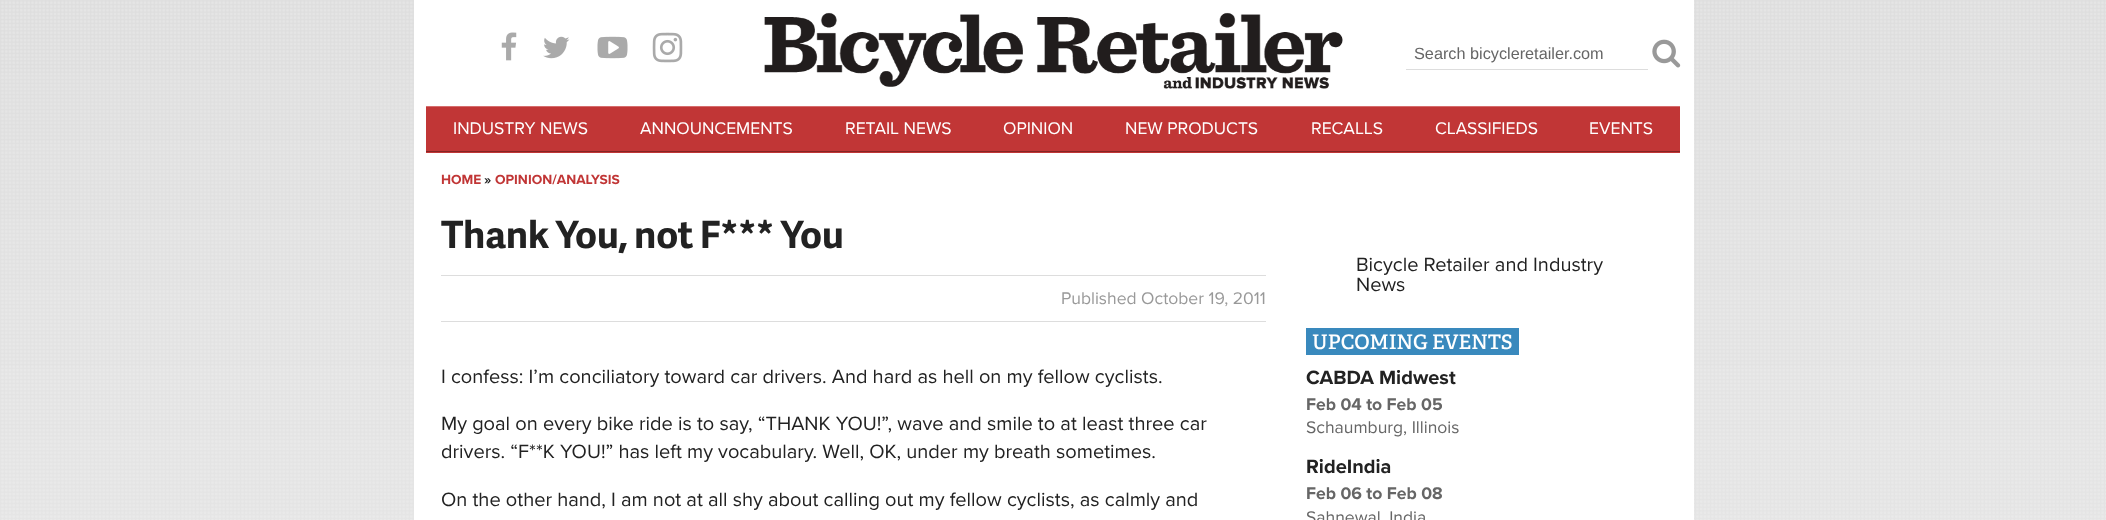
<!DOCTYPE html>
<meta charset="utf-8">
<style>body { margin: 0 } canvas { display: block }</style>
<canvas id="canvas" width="2106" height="520"></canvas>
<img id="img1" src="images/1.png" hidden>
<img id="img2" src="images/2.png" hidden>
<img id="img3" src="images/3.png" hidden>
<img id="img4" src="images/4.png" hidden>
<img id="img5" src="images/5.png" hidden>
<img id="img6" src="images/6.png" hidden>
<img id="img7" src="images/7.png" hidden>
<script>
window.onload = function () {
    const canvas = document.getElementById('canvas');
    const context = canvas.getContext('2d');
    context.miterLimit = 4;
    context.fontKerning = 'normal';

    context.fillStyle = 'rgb(255, 255, 255)';
    context.fillRect(0, 0, 2106, 520);
    context.drawImage(document.getElementById('img1'), 0, 0, 2106, 520);
    context.fillRect(414, 0, 1280, 520);
    context.drawImage(document.getElementById('img2'), 501, 32, 16, 29);
    context.drawImage(document.getElementById('img3'), 543, 36, 27, 23);
    context.drawImage(document.getElementById('img4'), 597, 36, 31, 23);
    context.drawImage(document.getElementById('img5'), 652, 32, 31, 31);
    context.drawImage(document.getElementById('img6'), 764, 12, 579, 77);
    context.fillStyle = 'rgb(221, 221, 221)';
    context.fillRect(1406, 69, 242, 1);
    context.drawImage(document.getElementById('img7'), 1652, 39, 29, 29);
    context.fillStyle = 'rgb(193, 54, 54)';
    context.fillRect(426, 107, 1254, 46);
    context.fillStyle = 'rgb(214, 109, 109)';
    context.fillRect(426, 106, 1254, 1);
    context.fillStyle = 'rgb(133, 37, 37)';
    context.fillRect(426, 151, 1254, 1);
    context.fillStyle = 'rgb(221, 221, 221)';
    context.fillRect(441, 275, 825, 1);
    context.fillRect(441, 321, 825, 1);
    context.fillStyle = 'rgb(57, 137, 189)';
    context.fillRect(1306, 328, 213, 27);
    context.font = '16.25px Liberation Sans';
    context.fillStyle = 'rgb(102, 102, 102)';
    context.fillText('Search bicycleretailer.com', 1414, 59);
    context.font = '17.5px Proxima Nova';
    context.fillStyle = 'rgb(255, 255, 255)';
    context.fillText('INDUSTRY NEWS', 453, 134);
    context.fillText('ANNOUNCEMENTS', 640, 134);
    context.fillText('RETAIL NEWS', 845, 134);
    context.fillText('OPINION', 1003, 134);
    context.fillText('NEW PRODUCTS', 1125, 134);
    context.fillText('RECALLS', 1311, 134);
    context.fillText('CLASSIFIEDS', 1435, 134);
    context.fillText('EVENTS', 1589, 134);
    context.font = 'bold 13.75px Proxima Nova';
    context.fillStyle = 'rgb(193, 54, 54)';
    context.fillText('HOME', 441, 184);
    context.fillStyle = 'rgb(34, 34, 34)';
    context.fillText('»', 484, 184);
    context.fillStyle = 'rgb(193, 54, 54)';
    context.fillText('OPINION/ANALYSIS', 495, 184);
    context.font = 'bold 37.5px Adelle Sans';
    context.fillStyle = 'rgb(34, 34, 34)';
    context.fillText('Thank You, not F*** You', 441, 248);
    context.font = '17.5px Proxima Nova';
    context.fillStyle = 'rgb(153, 153, 153)';
    context.fillText('Published October 19, 2011', 1061, 304);
    context.font = '20px Proxima Nova';
    context.fillStyle = 'rgb(34, 34, 34)';
    context.fillText('I confess: I’m conciliatory toward car drivers. And hard as hell on my fellow cyclists.', 441, 383);
    context.fillText('My goal on every bike ride is to say, “THANK YOU!”, wave and smile to at least three car', 441, 430);
    context.fillText('drivers. “F**K YOU!” has left my vocabulary. Well, OK, under my breath sometimes.', 441, 458);
    context.fillText('On the other hand, I am not at all shy about calling out my fellow cyclists, as calmly and', 441, 506);
    context.fillText('Bicycle Retailer and Industry', 1356, 271);
    context.fillText('News', 1356, 291);
    context.font = '600 20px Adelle';
    context.fillStyle = 'rgb(255, 255, 255)';
    context.fillText('UPCOMING EVENTS', 1312, 349);
    context.font = 'bold 20px Proxima Nova';
    context.fillStyle = 'rgb(34, 34, 34)';
    context.fillText('CABDA Midwest', 1306, 384);
    context.font = 'bold 17.5px Proxima Nova';
    context.fillStyle = 'rgb(102, 102, 102)';
    context.fillText('Feb 04 to Feb 05', 1306, 410);
    context.font = '17.5px Proxima Nova';
    context.fillText('Schaumburg, Illinois', 1306, 433);
    context.font = 'bold 20px Proxima Nova';
    context.fillStyle = 'rgb(34, 34, 34)';
    context.fillText('RideIndia', 1306, 473);
    context.font = 'bold 17.5px Proxima Nova';
    context.fillStyle = 'rgb(102, 102, 102)';
    context.fillText('Feb 06 to Feb 08', 1306, 499);
    context.font = '17.5px Proxima Nova';
    context.fillText('Sahnewal, India', 1306, 523);
};
</script>
